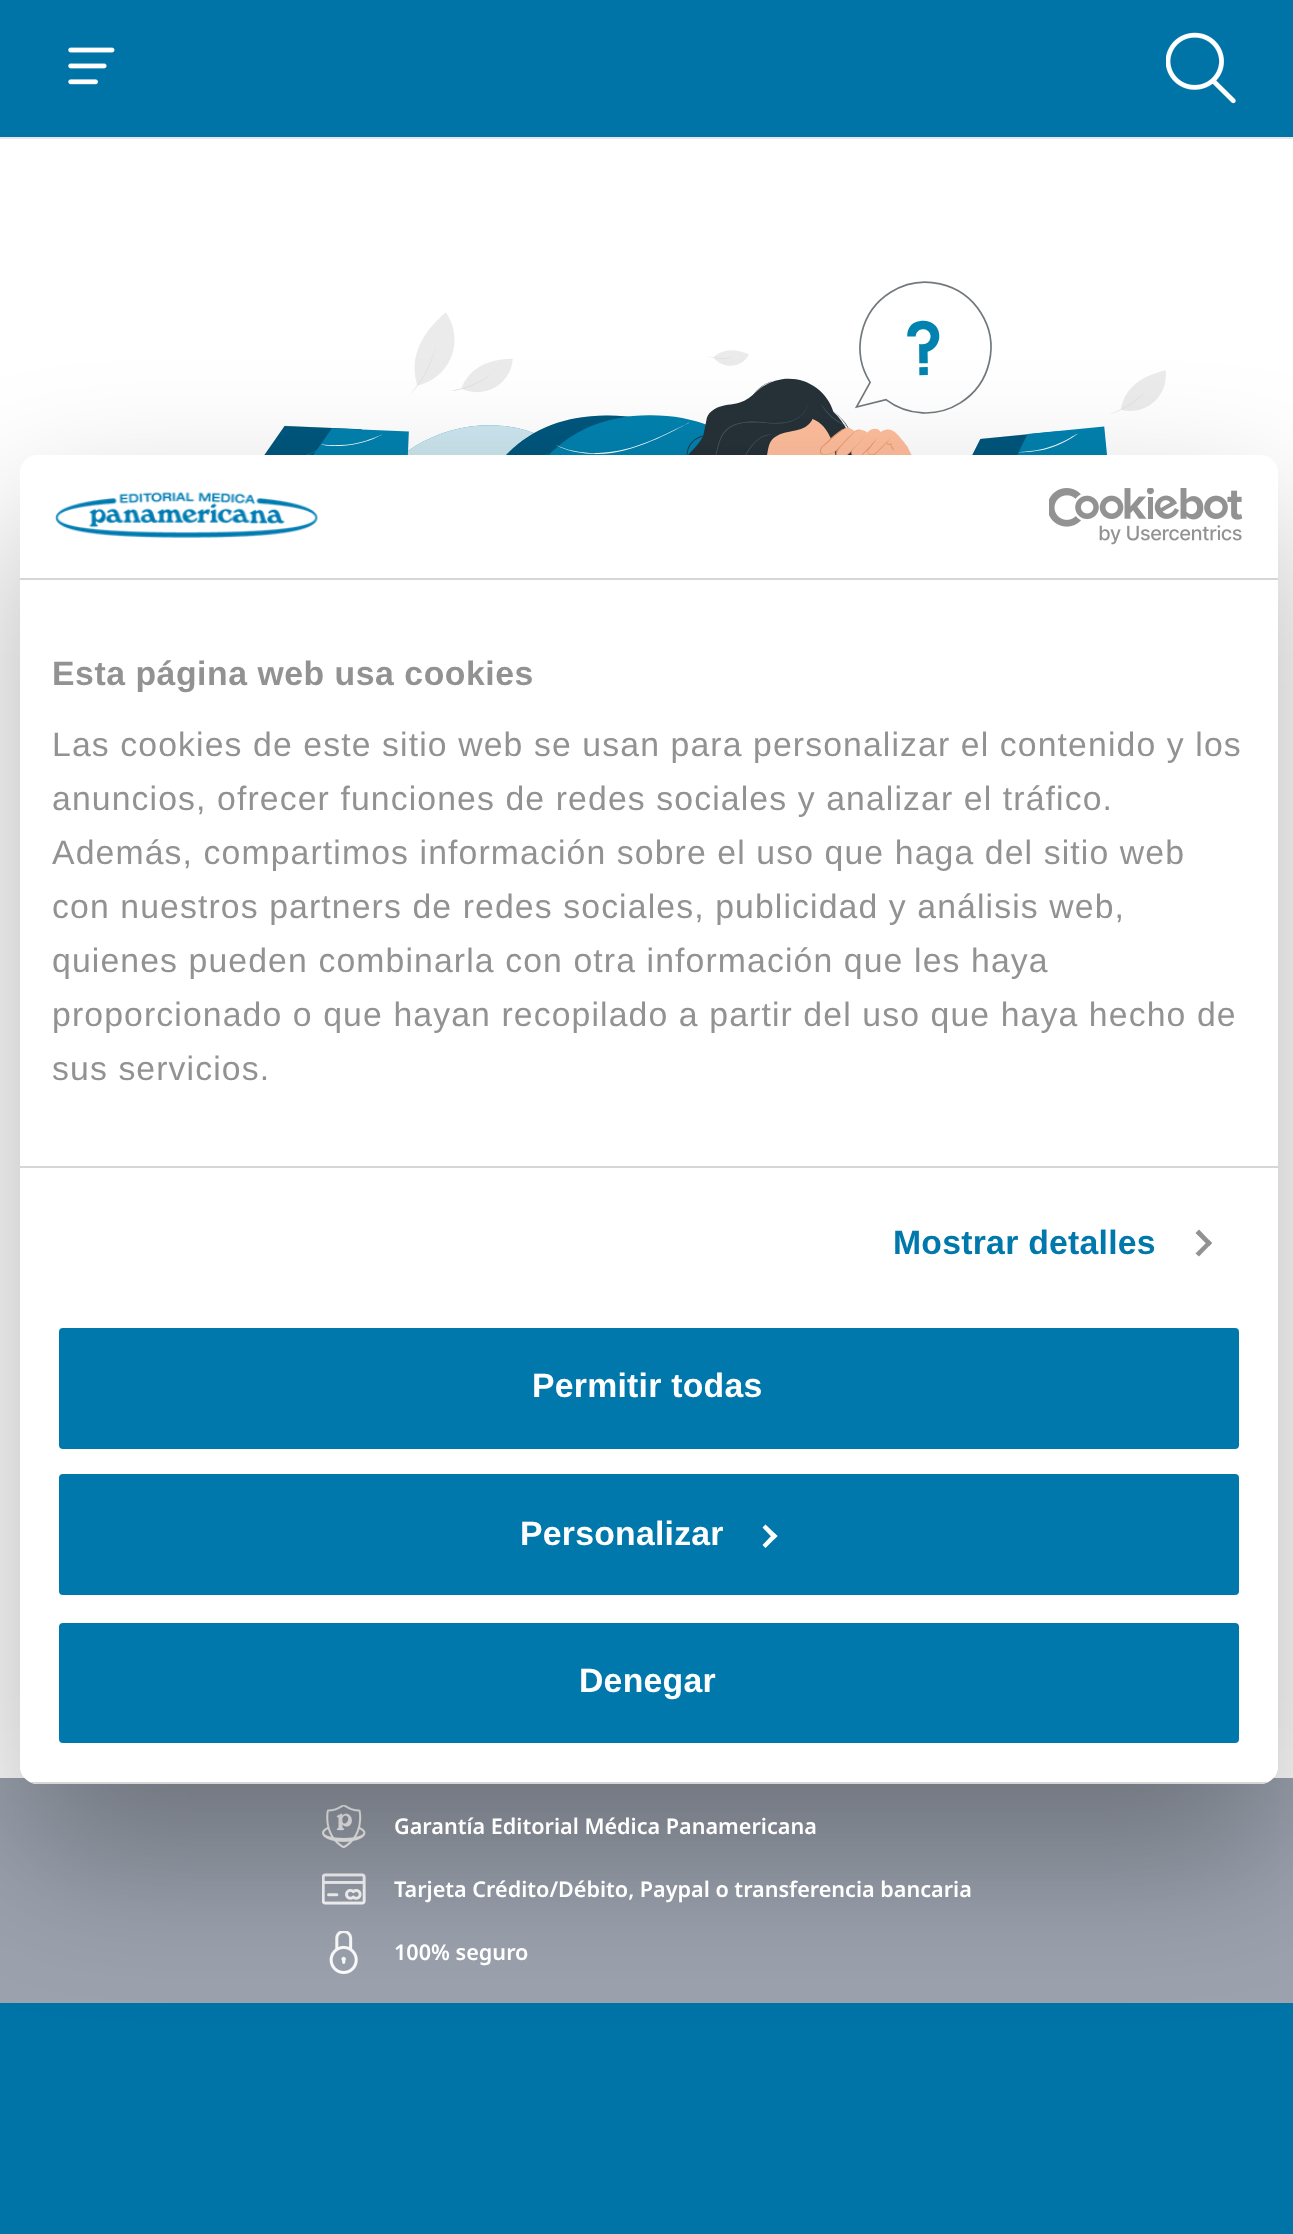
<!DOCTYPE html>
<meta charset="utf-8">
<style>body { margin: 0 } canvas { display: block }</style>
<canvas id="canvas" width="1293" height="2234"></canvas>
<img id="img1" src="images/5.png" hidden>
<img id="img2" src="images/6.png" hidden>
<img id="img3" src="images/7.png" hidden>
<img id="img4" src="images/8.png" hidden>
<img id="img5" src="images/1.png" hidden>
<img id="img6" src="images/2.png" hidden>
<img id="img7" src="images/3.png" hidden>
<img id="img8" src="images/4.png" hidden>
<script>
window.onload = function () {
    const canvas = document.getElementById('canvas');
    const context = canvas.getContext('2d');
    context.miterLimit = 4;
    context.fontKerning = 'normal';

    context.fillStyle = 'rgb(255, 255, 255)';
    context.fillRect(0, 0, 1293, 2234);
    context.drawImage(document.getElementById('img1'), 264, 281, 902, 174);
    context.fillStyle = 'rgb(156, 163, 175)';
    context.fillRect(0, 1778, 1293, 225);
    context.drawImage(document.getElementById('img2'), 322, 1805, 44, 43);
    context.drawImage(document.getElementById('img3'), 322, 1873, 44, 32);
    context.drawImage(document.getElementById('img4'), 329, 1931, 29, 43);
    context.fillStyle = 'rgb(0, 116, 167)';
    context.fillRect(0, 2003, 1293, 231);
    context.save();
    context.beginPath();
    context.moveTo(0, 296);
    context.lineTo(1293, 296);
    context.lineTo(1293, 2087);
    context.lineTo(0, 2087);
    context.closePath();
    context.moveTo(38, 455);
    context.lineTo(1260, 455);
    context.bezierCurveTo(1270, 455, 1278, 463, 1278, 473);
    context.lineTo(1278, 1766);
    context.bezierCurveTo(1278, 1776, 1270, 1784, 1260, 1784);
    context.lineTo(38, 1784);
    context.bezierCurveTo(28, 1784, 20, 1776, 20, 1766);
    context.lineTo(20, 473);
    context.bezierCurveTo(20, 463, 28, 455, 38, 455);
    context.closePath();
    context.clip('evenodd');
    context.fillStyle = 'rgba(0, 0, 0, 0.3)';
    context.filter = 'blur(76.5px)';
    context.beginPath();
    context.roundRect(20, 527, 1258, 1329, 18);
    context.fill();
    context.filter = 'none';
    context.restore();
    context.fillStyle = 'rgb(255, 255, 255)';
    context.beginPath();
    context.roundRect(20, 455, 1258, 1329, 18);
    context.fill();
    context.fillStyle = 'rgb(214, 214, 214)';
    context.fillRect(20, 578, 1258, 2);
    context.drawImage(document.getElementById('img5'), 55, 491, 263, 47);
    context.drawImage(document.getElementById('img6'), 1049, 488, 194, 57);
    context.fillRect(20, 1166, 1258, 2);
    context.fillStyle = 'rgb(146, 146, 146)';
    context.beginPath();
    context.moveTo(1199, 1229.5);
    context.lineTo(1212, 1243);
    context.lineTo(1209, 1246.5);
    context.lineTo(1195.5, 1233);
    context.closePath();
    context.fill();
    context.beginPath();
    context.moveTo(1209, 1240);
    context.lineTo(1212, 1243);
    context.lineTo(1199, 1256.5);
    context.lineTo(1195.5, 1253.5);
    context.closePath();
    context.fill();
    context.save();
    context.beginPath();
    context.roundRect(20, 455, 1258, 1329, 18);
    context.clip();
    context.fillStyle = 'rgb(214, 214, 214)';
    context.fillRect(30, 1782, 1238, 2);
    context.restore();
    context.fillStyle = 'rgb(0, 120, 172)';
    context.beginPath();
    context.roundRect(56.5, 1325.5, 1185, 126, 6.5);
    context.fill();
    context.strokeStyle = 'rgb(255, 255, 255)';
    context.lineWidth = 5;
    context.stroke();
    context.beginPath();
    context.roundRect(56.5, 1471.5, 1185, 126, 6.5);
    context.fill();
    context.stroke();
    context.fillStyle = 'rgb(255, 255, 255)';
    context.beginPath();
    context.moveTo(765.5, 1524.5);
    context.lineTo(777.5, 1536);
    context.lineTo(774, 1539.5);
    context.lineTo(762.5, 1527.5);
    context.closePath();
    context.fill();
    context.beginPath();
    context.moveTo(774, 1533);
    context.lineTo(777.5, 1536);
    context.lineTo(765.5, 1548);
    context.lineTo(762.5, 1545);
    context.closePath();
    context.fill();
    context.fillStyle = 'rgb(0, 120, 172)';
    context.beginPath();
    context.roundRect(56.5, 1620.5, 1185, 125, 6.5);
    context.fill();
    context.stroke();
    context.fillStyle = 'rgb(229, 231, 235)';
    context.fillRect(0, 137, 1293, 2);
    context.fillStyle = 'rgb(0, 116, 167)';
    context.fillRect(0, 0, 1293, 137);
    context.drawImage(document.getElementById('img7'), 68, 47, 47, 38);
    context.drawImage(document.getElementById('img8'), 1166, 32, 70, 72);
    context.letterSpacing = '0.55px';
    context.font = 'bold 33.75px Liberation Sans';
    context.fillStyle = 'rgb(146, 146, 146)';
    context.fillText('Esta página web usa cookies', 52, 685);
    context.letterSpacing = '1.12px';
    context.font = '33.75px Liberation Sans';
    context.fillText('Las cookies de este sitio web se usan para personalizar el contenido y los', 52, 756);
    context.fillText('anuncios, ofrecer funciones de redes sociales y analizar el tráfico.', 52, 810);
    context.fillText('Además, compartimos información sobre el uso que haga del sitio web', 52, 864);
    context.fillText('con nuestros partners de redes sociales, publicidad y análisis web,', 52, 918);
    context.fillText('quienes pueden combinarla con otra información que les haya', 52, 972);
    context.fillText('proporcionado o que hayan recopilado a partir del uso que haya hecho de', 52, 1026);
    context.fillText('sus servicios.', 52, 1080);
    context.letterSpacing = '0.25px';
    context.font = 'bold 33.75px Liberation Sans';
    context.fillStyle = 'rgb(0, 120, 172)';
    context.fillText('Mostrar detalles', 893, 1254);
    context.fillStyle = 'rgb(255, 255, 255)';
    context.fillText('Permitir todas', 532, 1397);
    context.fillText('Personalizar', 520, 1545);
    context.fillText('Denegar', 579, 1692);
    context.letterSpacing = '0px';
    context.font = '600 21.6px Noto Sans';
    context.fillText('Garantía Editorial Médica Panamericana', 394, 1834);
    context.fillText('Tarjeta Crédito/Débito, Paypal o transferencia bancaria', 394, 1897);
    context.fillText('100% seguro', 394, 1960);
};
</script>
